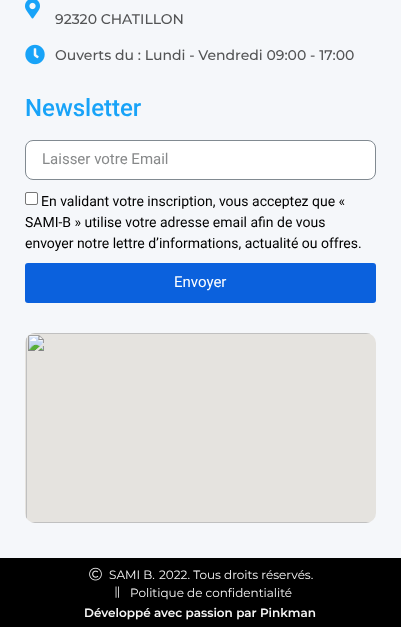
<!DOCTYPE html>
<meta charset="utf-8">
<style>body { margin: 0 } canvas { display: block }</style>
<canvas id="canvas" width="401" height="627"></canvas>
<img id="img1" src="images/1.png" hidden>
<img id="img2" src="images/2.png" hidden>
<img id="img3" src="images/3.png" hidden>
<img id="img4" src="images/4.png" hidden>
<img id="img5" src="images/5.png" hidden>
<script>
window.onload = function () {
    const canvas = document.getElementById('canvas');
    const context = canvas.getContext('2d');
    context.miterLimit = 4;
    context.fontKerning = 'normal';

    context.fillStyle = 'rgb(245, 247, 250)';
    context.fillRect(0, 0, 401, 627);
    context.drawImage(document.getElementById('img1'), 25, 0, 15, 19);
    context.drawImage(document.getElementById('img2'), 25, 44, 20, 21);
    context.fillStyle = 'rgb(255, 255, 255)';
    context.beginPath();
    context.roundRect(25.5, 140.5, 350, 39, 7.5);
    context.fill();
    context.strokeStyle = 'rgb(129, 138, 145)';
    context.stroke();
    context.beginPath();
    context.roundRect(25.5, 192.5, 12, 12, 1.5);
    context.fill();
    context.strokeStyle = 'rgb(118, 118, 118)';
    context.stroke();
    context.fillStyle = 'rgb(11, 97, 221)';
    context.beginPath();
    context.roundRect(25, 263, 351, 40, 3);
    context.fill();
    context.drawImage(document.getElementById('img3'), 25, 333, 351, 190);
    context.fillStyle = 'rgb(0, 0, 0)';
    context.fillRect(0, 558, 401, 69);
    context.drawImage(document.getElementById('img4'), 89, 567, 13, 14);
    context.drawImage(document.getElementById('img5'), 115, 586, 4, 12);
    context.font = '500 14px Montserrat';
    context.fillStyle = 'rgb(83, 84, 85)';
    context.fillText('92320 CHATILLON', 55, 24);
    context.fillText('Ouverts du : Lundi - Vendredi 09:00 - 17:00', 55, 60);
    context.font = '500 24px Roboto';
    context.fillStyle = 'rgb(24, 163, 248)';
    context.fillText('Newsletter', 25, 116);
    context.font = '15px Roboto';
    context.fillStyle = 'rgb(135, 137, 138)';
    context.fillText('Laisser votre Email', 42, 164);
    context.font = '14px Roboto';
    context.fillStyle = 'rgb(0, 0, 0)';
    context.fillText('En validant votre inscription, vous acceptez que «', 41, 206);
    context.fillText('SAMI-B » utilise votre adresse email afin de vous', 25, 227);
    context.fillText('envoyer notre lettre d’informations, actualité ou offres.', 25, 248);
    context.font = '15px Roboto';
    context.fillStyle = 'rgb(255, 255, 255)';
    context.fillText('Envoyer', 174, 287);
    context.font = '12px Montserrat';
    context.fillStyle = 'rgb(246, 246, 246)';
    context.fillText('SAMI B.', 109, 579);
    context.fillText('2022. Tous droits réservés.', 159, 579);
    context.fillText('Politique de confidentialité', 130, 597);
    context.font = '600 12px Montserrat';
    context.fillText('Développé avec passion par Pinkman', 84, 617);
};
</script>
